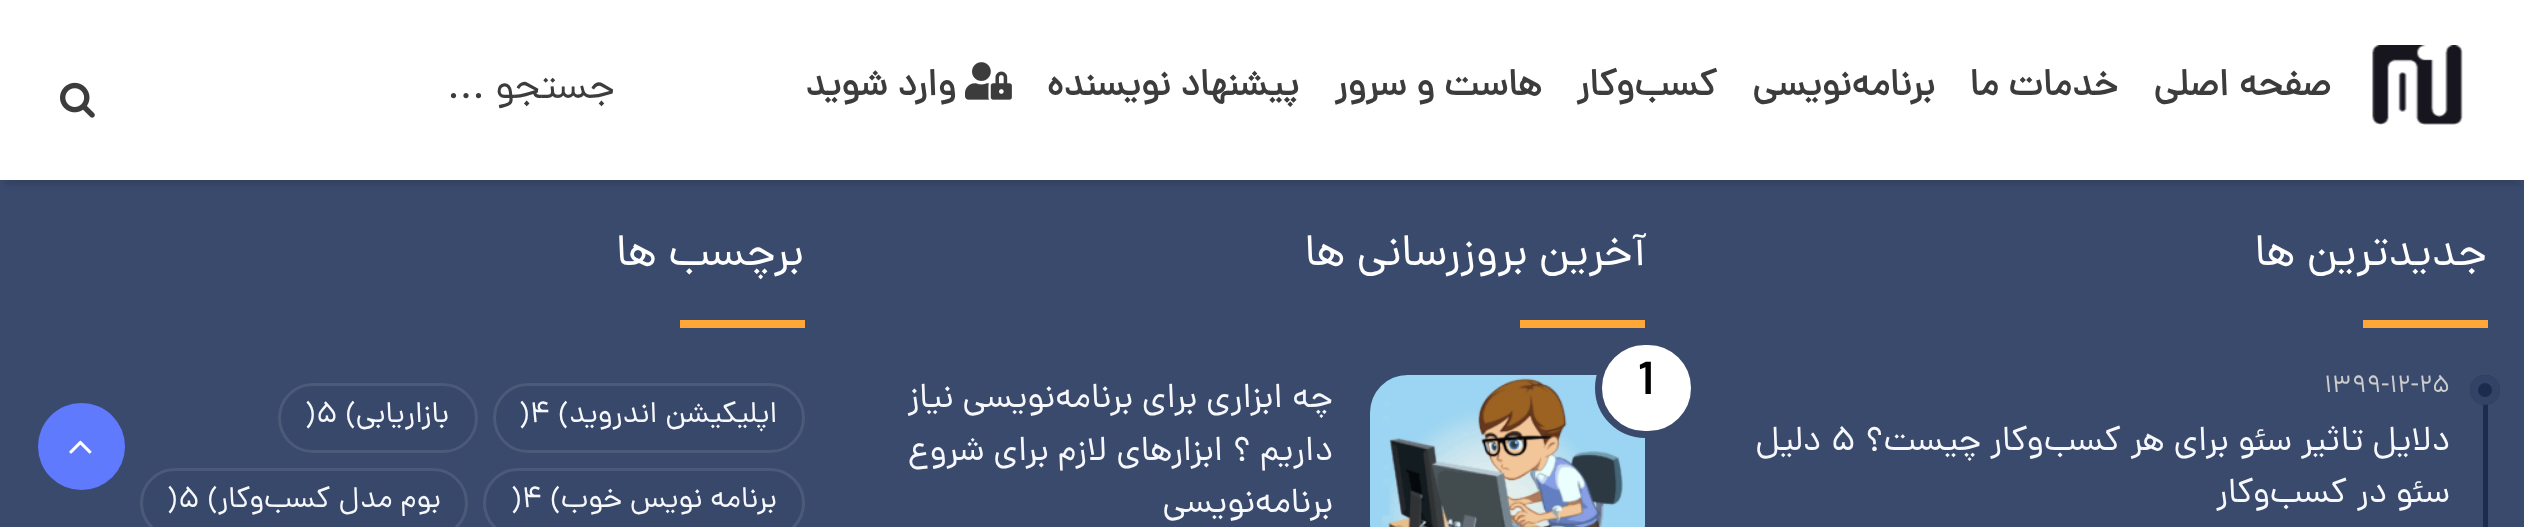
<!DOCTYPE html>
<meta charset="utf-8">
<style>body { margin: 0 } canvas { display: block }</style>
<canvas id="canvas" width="2524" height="527"></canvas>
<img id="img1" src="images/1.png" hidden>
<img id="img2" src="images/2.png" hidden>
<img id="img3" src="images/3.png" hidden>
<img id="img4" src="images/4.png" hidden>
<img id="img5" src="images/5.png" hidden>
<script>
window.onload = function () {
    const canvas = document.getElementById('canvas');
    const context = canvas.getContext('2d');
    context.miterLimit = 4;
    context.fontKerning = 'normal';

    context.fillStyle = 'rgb(58, 74, 109)';
    context.fillRect(0, 0, 2524, 527);
    context.fillStyle = 'rgba(0, 0, 0, 0.1)';
    context.filter = 'blur(2.5px)';
    context.beginPath();
    context.rect(5, 15, 2515, 170);
    context.fill();
    context.filter = 'none';
    context.fillStyle = 'rgb(255, 255, 255)';
    context.fillRect(0, 0, 2524, 180);
    context.drawImage(document.getElementById('img1'), 2372, 45, 91, 80);
    context.drawImage(document.getElementById('img2'), 965, 62, 47, 38);
    context.drawImage(document.getElementById('img3'), 60, 82, 35, 36);
    context.fillStyle = 'rgb(255, 167, 55)';
    context.fillRect(2363, 320, 125, 8);
    context.fillStyle = 'rgb(28, 44, 79)';
    context.fillRect(2483, 375, 5, 152);
    context.beginPath();
    context.arc(2485, 390, 15, 0, 2 * Math.PI);
    context.fill();
    context.beginPath();
    context.arc(2485, 390, 11, 0, 2 * Math.PI);
    context.strokeStyle = 'rgba(58, 74, 109, 0.8)';
    context.lineWidth = 8;
    context.stroke();
    context.fillStyle = 'rgb(255, 167, 55)';
    context.fillRect(1520, 320, 125, 8);
    context.drawImage(document.getElementById('img4'), 1370, 375, 275, 152);
    context.fillStyle = 'rgb(255, 255, 255)';
    context.beginPath();
    context.roundRect(1598.5, 341.5, 96, 93, 46.5);
    context.fill();
    context.strokeStyle = 'rgb(58, 74, 109)';
    context.lineWidth = 7;
    context.stroke();
    context.fillStyle = 'rgb(255, 167, 55)';
    context.fillRect(680, 320, 125, 8);
    context.fillStyle = 'rgb(56, 72, 106)';
    context.beginPath();
    context.roundRect(494.5, 384.5, 309, 67, 33.5);
    context.fill();
    context.strokeStyle = 'rgb(76, 90, 121)';
    context.lineWidth = 3;
    context.stroke();
    context.beginPath();
    context.roundRect(279.5, 384.5, 197, 67, 33.5);
    context.fill();
    context.stroke();
    context.beginPath();
    context.roundRect(484.5, 469.5, 319, 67, 33.5);
    context.fill();
    context.stroke();
    context.beginPath();
    context.roundRect(141.5, 469.5, 325, 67, 33.5);
    context.fill();
    context.stroke();
    context.fillStyle = 'rgb(96, 122, 254)';
    context.beginPath();
    context.arc(81.5, 446.5, 43.5, 0, 2 * Math.PI);
    context.fill();
    context.drawImage(document.getElementById('img5'), 69, 440, 23, 14);
    context.direction = 'rtl';
    context.font = 'bold 37.5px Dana';
    context.fillStyle = 'rgb(60, 60, 60)';
    context.fillText('صفحه اصلی', 2331, 95);
    context.fillText('خدمات ما', 2118, 95);
    context.fillText('برنامه‌نویسی', 1935, 95);
    context.fillText('کسب‌وکار', 1717, 95);
    context.fillText('هاست و سرور', 1542, 95);
    context.fillText('پیشنهاد نویسنده', 1299, 95);
    context.fillText('وارد شوید', 956, 95);
    context.font = '40px Dana';
    context.fillText('جستجو ...', 615, 98);
    context.font = '45px Dana';
    context.fillStyle = 'rgb(255, 255, 255)';
    context.fillText('جدیدترین ها', 2487, 265);
    context.direction = 'ltr';
    context.font = '25px Dana';
    context.fillStyle = 'rgb(204, 204, 204)';
    context.fillText('۱۳۹۹-۱۲-۲۵', 2324, 392);
    context.direction = 'rtl';
    context.font = '35px Dana';
    context.fillStyle = 'rgb(247, 248, 251)';
    context.fillText('دلایل تاثیر سئو برای هر کسب‌وکار چیست؟', 2450, 450);
    context.direction = 'ltr';
    context.fillText('۵', 1830, 450);
    context.direction = 'rtl';
    context.fillText('دلیل', 1821, 450);
    context.fillText('سئو در کسب‌وکار', 2450, 502);
    context.font = '45px Dana';
    context.fillStyle = 'rgb(255, 255, 255)';
    context.fillText('آخرین بروزرسانی ها', 1646, 265);
    context.direction = 'ltr';
    context.font = 'bold 47px Dana';
    context.fillStyle = 'rgb(0, 0, 0)';
    context.fillText('1', 1638, 394);
    context.direction = 'rtl';
    context.font = '35px Dana';
    context.fillStyle = 'rgb(247, 248, 251)';
    context.fillText('چه ابزاری برای برنامه‌نویسی نیاز', 1333, 407);
    context.fillText('داریم ؟ ابزارهای لازم برای شروع', 1333, 460);
    context.fillText('برنامه‌نویسی', 1333, 512);
    context.font = '45px Dana';
    context.fillStyle = 'rgb(255, 255, 255)';
    context.fillText('برچسب ها', 804, 265);
    context.font = '30px Dana';
    context.fillStyle = 'rgb(247, 248, 251)';
    context.fillText('اپلیکیشن اندروید', 777, 422);
    context.direction = 'ltr';
    context.fillText(')۴ (', 519, 422);
    context.direction = 'rtl';
    context.fillText('بازاریابی', 449, 422);
    context.direction = 'ltr';
    context.fillText(')۵ (', 305, 422);
    context.direction = 'rtl';
    context.fillText('برنامه نویس خوب', 777, 507);
    context.direction = 'ltr';
    context.fillText(')۴ (', 511, 507);
    context.direction = 'rtl';
    context.fillText('بوم مدل کسب‌وکار', 441, 507);
    context.direction = 'ltr';
    context.fillText(')۵ (', 167, 507);
};
</script>
